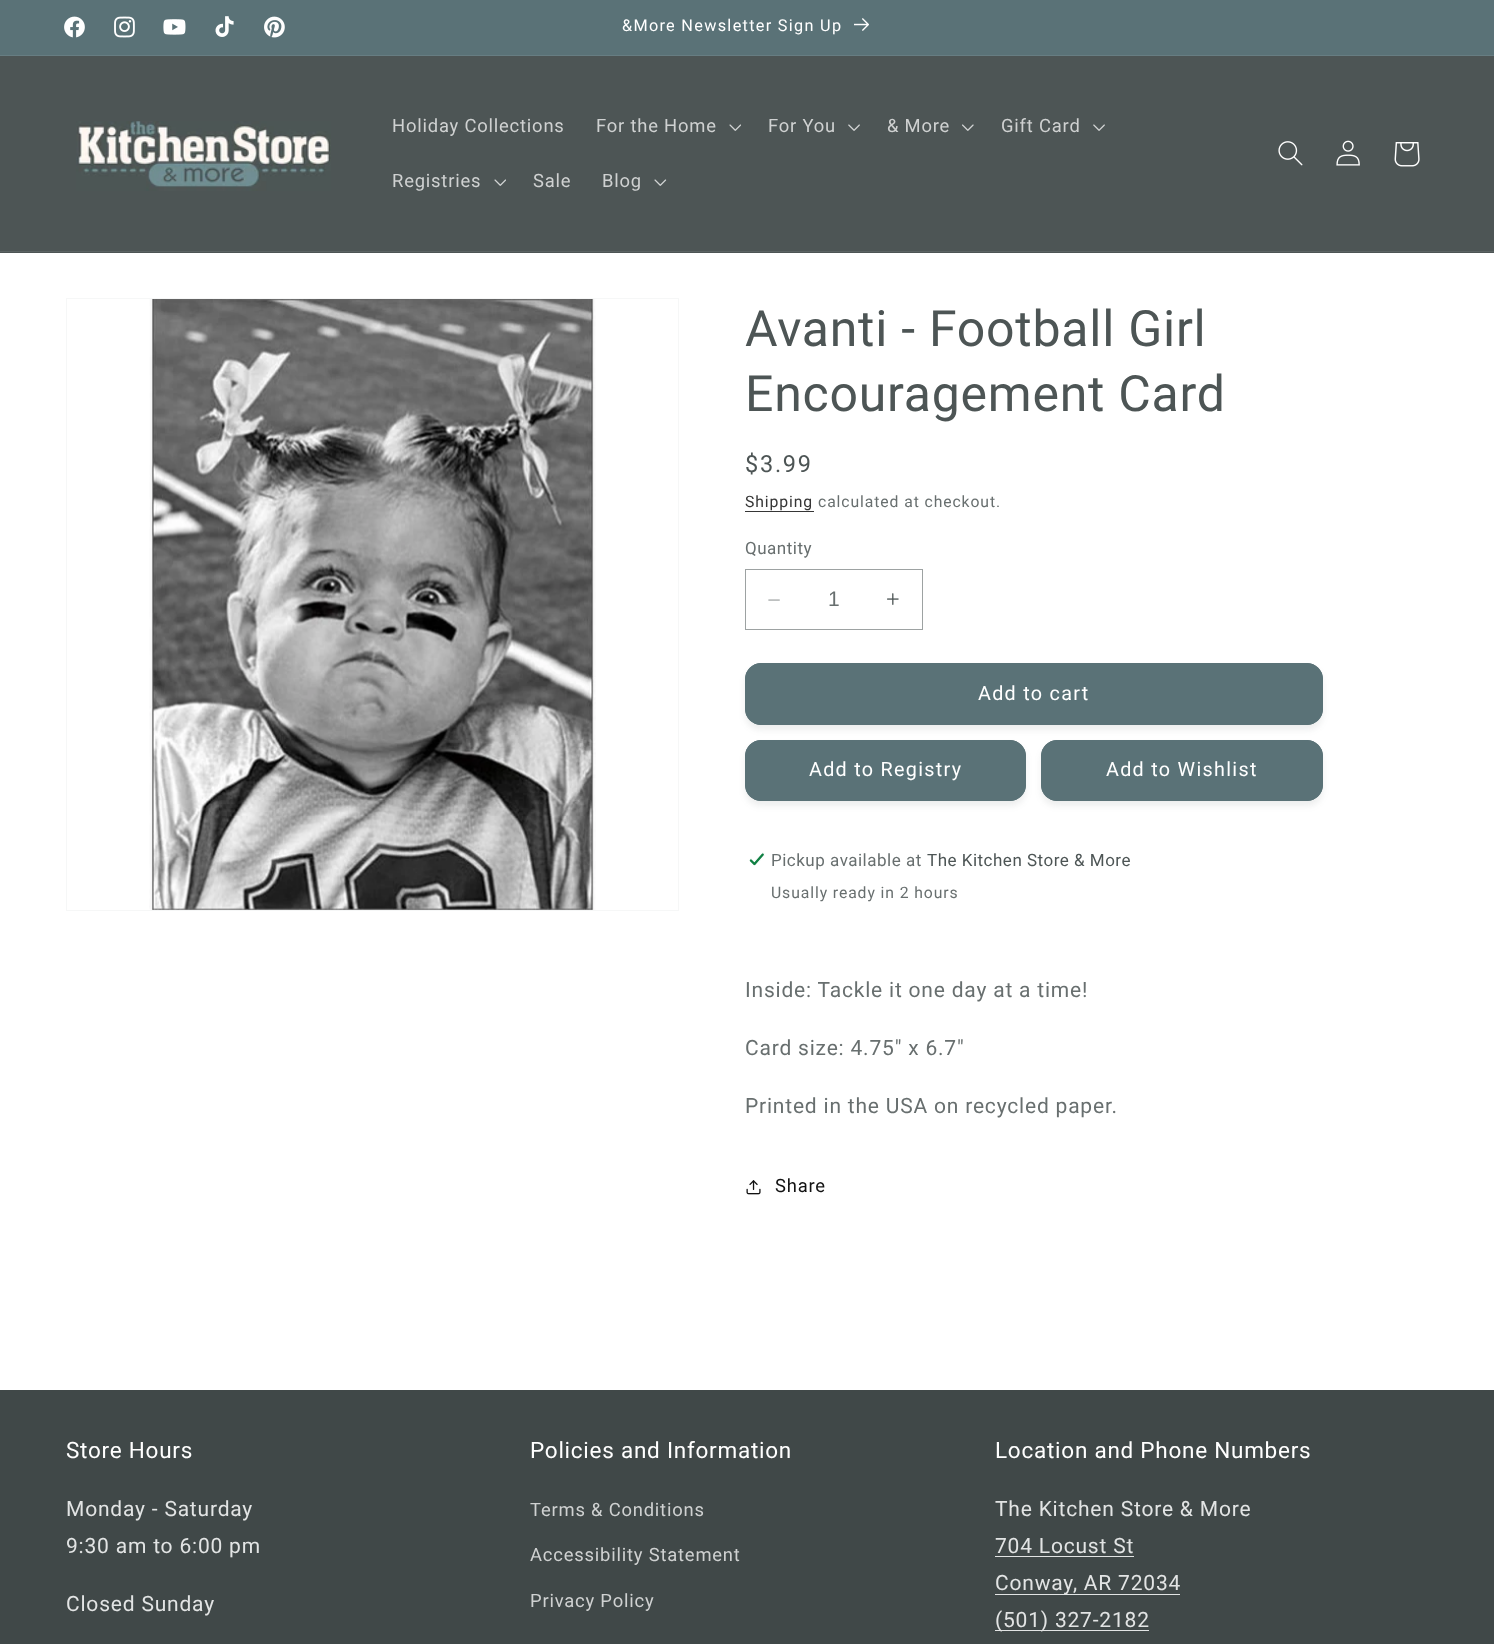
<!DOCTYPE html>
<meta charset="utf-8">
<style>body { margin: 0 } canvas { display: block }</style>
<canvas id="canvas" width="1494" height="1644"></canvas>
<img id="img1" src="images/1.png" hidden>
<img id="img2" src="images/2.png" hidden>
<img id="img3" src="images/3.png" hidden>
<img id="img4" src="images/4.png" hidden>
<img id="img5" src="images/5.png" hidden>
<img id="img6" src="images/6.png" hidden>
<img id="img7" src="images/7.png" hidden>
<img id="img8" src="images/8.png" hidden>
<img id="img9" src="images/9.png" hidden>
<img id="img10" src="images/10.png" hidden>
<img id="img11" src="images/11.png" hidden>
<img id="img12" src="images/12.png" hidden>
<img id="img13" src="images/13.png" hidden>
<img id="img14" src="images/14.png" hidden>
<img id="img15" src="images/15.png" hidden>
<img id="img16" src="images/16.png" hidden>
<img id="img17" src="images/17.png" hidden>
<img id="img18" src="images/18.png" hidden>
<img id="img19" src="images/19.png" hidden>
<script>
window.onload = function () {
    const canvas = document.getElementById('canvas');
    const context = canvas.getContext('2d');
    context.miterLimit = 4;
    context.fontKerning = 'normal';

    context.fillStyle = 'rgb(255, 255, 255)';
    context.fillRect(0, 0, 1494, 1644);
    context.fillStyle = 'rgb(90, 114, 119)';
    context.fillRect(0, 0, 1494, 55);
    context.fillStyle = 'rgb(103, 125, 130)';
    context.fillRect(0, 55, 1494, 1);
    context.drawImage(document.getElementById('img1'), 64, 16, 21, 22);
    context.drawImage(document.getElementById('img2'), 114, 16, 21, 22);
    context.drawImage(document.getElementById('img3'), 163, 19, 23, 16);
    context.drawImage(document.getElementById('img4'), 215, 16, 19, 21);
    context.drawImage(document.getElementById('img5'), 264, 16, 21, 22);
    context.drawImage(document.getElementById('img6'), 854, 18, 15, 13);
    context.fillStyle = 'rgb(77, 85, 85)';
    context.fillRect(0, 56, 1494, 197);
    context.fillStyle = 'rgb(91, 99, 99)';
    context.fillRect(0, 251, 1494, 1);
    context.drawImage(document.getElementById('img7'), 76, 121, 255, 70);
    context.drawImage(document.getElementById('img8'), 729, 124, 12, 7);
    context.drawImage(document.getElementById('img9'), 848, 124, 12, 7);
    context.drawImage(document.getElementById('img10'), 962, 124, 12, 7);
    context.drawImage(document.getElementById('img9'), 1093, 124, 12, 7);
    context.drawImage(document.getElementById('img8'), 494, 179, 12, 7);
    context.drawImage(document.getElementById('img11'), 654, 179, 13, 7);
    context.drawImage(document.getElementById('img12'), 1278, 141, 25, 25);
    context.drawImage(document.getElementById('img13'), 1336, 140, 24, 26);
    context.drawImage(document.getElementById('img14'), 1394, 142, 26, 25);
    context.strokeStyle = 'rgb(246, 247, 247)';
    context.strokeRect(66.5, 298.5, 612, 612);
    context.drawImage(document.getElementById('img15'), 149, 299, 447, 611);
    context.fillStyle = 'rgb(54, 54, 54)';
    context.fillRect(745, 511, 69, 1);
    context.drawImage(document.getElementById('img16'), 768, 599, 12, 2);
    context.drawImage(document.getElementById('img17'), 887, 593, 12, 12);
    context.strokeStyle = 'rgb(157, 162, 162)';
    context.strokeRect(745.5, 569.5, 177, 60);
    context.fillStyle = 'rgba(77, 85, 85, 0.1)';
    context.filter = 'blur(3px)';
    context.beginPath();
    context.roundRect(745, 668, 578, 62, 16);
    context.fill();
    context.filter = 'none';
    context.fillStyle = 'rgb(90, 114, 119)';
    context.beginPath();
    context.roundRect(745, 663, 578, 62, 16);
    context.fill();
    context.beginPath();
    context.roundRect(745.5, 663.5, 577, 61, 15.5);
    context.strokeStyle = 'rgb(90, 114, 119)';
    context.stroke();
    context.fillStyle = 'rgba(77, 85, 85, 0.1)';
    context.filter = 'blur(3px)';
    context.beginPath();
    context.roundRect(745, 745, 281, 61, 16);
    context.fill();
    context.filter = 'none';
    context.fillStyle = 'rgb(90, 114, 119)';
    context.beginPath();
    context.roundRect(745, 740, 281, 61, 16);
    context.fill();
    context.beginPath();
    context.roundRect(745.5, 740.5, 280, 60, 15.5);
    context.stroke();
    context.fillStyle = 'rgba(77, 85, 85, 0.1)';
    context.filter = 'blur(3px)';
    context.beginPath();
    context.roundRect(1041, 745, 282, 61, 16);
    context.fill();
    context.filter = 'none';
    context.fillStyle = 'rgb(90, 114, 119)';
    context.beginPath();
    context.roundRect(1041, 740, 282, 61, 16);
    context.fill();
    context.beginPath();
    context.roundRect(1041.5, 740.5, 281, 60, 15.5);
    context.stroke();
    context.drawImage(document.getElementById('img18'), 749, 852, 16, 14);
    context.drawImage(document.getElementById('img19'), 746, 1180, 15, 15);
    context.fillStyle = 'rgb(64, 72, 72)';
    context.fillRect(0, 1390, 1494, 254);
    context.fillStyle = 'rgb(226, 228, 228)';
    context.fillRect(995, 1556, 139, 1);
    context.fillRect(995, 1594, 185, 1);
    context.fillRect(995, 1630, 154, 1);
    context.letterSpacing = '1.3px';
    context.font = '16.25px Roboto';
    context.fillStyle = 'rgb(255, 255, 255)';
    context.fillText('&More Newsletter Sign Up', 622, 31);
    context.letterSpacing = '0.8px';
    context.font = '18.4px Roboto';
    context.fillStyle = 'rgb(207, 209, 209)';
    context.fillText('Holiday Collections', 392, 132);
    context.fillText('For the Home', 596, 132);
    context.fillText('For You', 768, 132);
    context.fillText('& More', 887, 132);
    context.fillText('Gift Card', 1001, 132);
    context.fillText('Registries', 392, 187);
    context.fillText('Sale', 533, 187);
    context.fillText('Blog', 602, 187);
    context.letterSpacing = '0.75px';
    context.font = '50px Roboto';
    context.fillStyle = 'rgb(77, 85, 85)';
    context.fillText('Avanti - Football Girl', 745, 346);
    context.fillText('Encouragement Card', 745, 411);
    context.letterSpacing = '1.75px';
    context.font = '23.5px Roboto';
    context.fillText('$3.99', 745, 472);
    context.letterSpacing = '0.9px';
    context.font = '15.75px Roboto';
    context.fillStyle = 'rgb(54, 54, 54)';
    context.fillText('Shipping', 745, 507);
    context.fillStyle = 'rgb(104, 111, 111)';
    context.fillText('calculated at checkout.', 818, 507);
    context.letterSpacing = '0.5px';
    context.font = '17px Roboto';
    context.fillText('Quantity', 745, 554);
    context.letterSpacing = '0px';
    context.font = '21px Liberation Sans';
    context.fillText('1', 828, 606);
    context.letterSpacing = '1.3px';
    context.font = '19.75px Roboto';
    context.fillStyle = 'rgb(255, 255, 255)';
    context.fillText('Add to cart', 978, 700);
    context.fillText('Add to Registry', 809, 776);
    context.fillText('Add to Wishlist', 1106, 776);
    context.letterSpacing = '0.5px';
    context.font = '17px Roboto';
    context.fillStyle = 'rgb(104, 111, 111)';
    context.fillText('Pickup available at', 771, 866);
    context.fillStyle = 'rgb(77, 85, 85)';
    context.fillText('The Kitchen Store & More', 927, 866);
    context.letterSpacing = '0.9px';
    context.font = '15.75px Roboto';
    context.fillStyle = 'rgb(104, 111, 111)';
    context.fillText('Usually ready in 2 hours', 771, 898);
    context.letterSpacing = '0.8px';
    context.font = '21px Roboto';
    context.fillText('Inside: Tackle it one day at a time!', 745, 997);
    context.fillText('Card size: 4.75" x 6.7"', 745, 1055);
    context.fillText('Printed in the USA on recycled paper.', 745, 1113);
    context.font = '18.4px Roboto';
    context.fillStyle = 'rgb(18, 18, 18)';
    context.fillText('Share', 775, 1192);
    context.letterSpacing = '0.75px';
    context.font = '22.5px Roboto';
    context.fillStyle = 'rgb(255, 255, 255)';
    context.fillText('Store Hours', 66, 1458);
    context.letterSpacing = '0.8px';
    context.font = '21px Roboto';
    context.fillStyle = 'rgb(226, 228, 228)';
    context.fillText('Monday - Saturday', 66, 1516);
    context.fillText('9:30 am to 6:00 pm', 66, 1553);
    context.fillText('Closed Sunday', 66, 1611);
    context.letterSpacing = '0.75px';
    context.font = '22.5px Roboto';
    context.fillStyle = 'rgb(255, 255, 255)';
    context.fillText('Policies and Information', 530, 1458);
    context.letterSpacing = '0.8px';
    context.font = '18.4px Roboto';
    context.fillStyle = 'rgb(207, 209, 209)';
    context.fillText('Terms & Conditions', 530, 1516);
    context.fillText('Accessibility Statement', 530, 1561);
    context.fillText('Privacy Policy', 530, 1607);
    context.letterSpacing = '0.75px';
    context.font = '22.5px Roboto';
    context.fillStyle = 'rgb(255, 255, 255)';
    context.fillText('Location and Phone Numbers', 995, 1458);
    context.letterSpacing = '0.8px';
    context.font = '21px Roboto';
    context.fillStyle = 'rgb(226, 228, 228)';
    context.fillText('The Kitchen Store & More', 995, 1516);
    context.fillText('704 Locust St', 995, 1553);
    context.fillText('Conway, AR 72034', 995, 1590);
    context.fillText('(501) 327-2182', 995, 1627);
};
</script>
